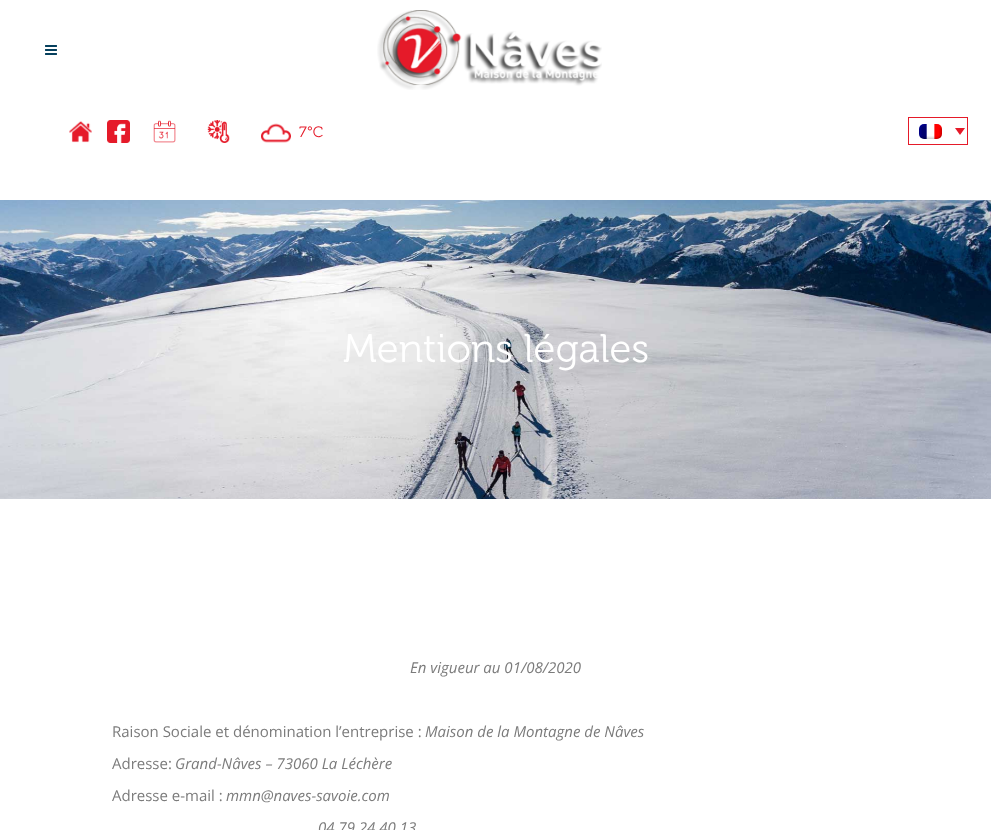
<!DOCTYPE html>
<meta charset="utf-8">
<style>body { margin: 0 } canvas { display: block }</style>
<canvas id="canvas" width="991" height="830"></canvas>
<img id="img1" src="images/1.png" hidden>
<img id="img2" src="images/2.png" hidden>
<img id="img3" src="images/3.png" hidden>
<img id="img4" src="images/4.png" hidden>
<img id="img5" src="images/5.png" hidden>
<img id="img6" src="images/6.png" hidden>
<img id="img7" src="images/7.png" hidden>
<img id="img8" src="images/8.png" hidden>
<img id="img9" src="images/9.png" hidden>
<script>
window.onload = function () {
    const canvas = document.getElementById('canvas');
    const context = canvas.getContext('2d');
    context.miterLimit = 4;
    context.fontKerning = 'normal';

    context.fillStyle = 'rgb(255, 255, 255)';
    context.fillRect(0, 0, 991, 830);
    context.drawImage(document.getElementById('img1'), 69, 121, 23, 22);
    context.drawImage(document.getElementById('img2'), 107, 120, 23, 23);
    context.drawImage(document.getElementById('img3'), 153, 120, 23, 23);
    context.drawImage(document.getElementById('img4'), 207, 120, 23, 23);
    context.drawImage(document.getElementById('img5'), 261, 123, 30, 20);
    context.strokeStyle = 'rgb(229, 26, 41)';
    context.strokeRect(908.5, 117.5, 59, 27);
    context.drawImage(document.getElementById('img6'), 919, 124, 23, 15);
    context.fillStyle = 'rgb(229, 26, 41)';
    context.beginPath();
    context.moveTo(955, 128);
    context.lineTo(965, 128);
    context.lineTo(960, 135);
    context.closePath();
    context.fill();
    context.drawImage(document.getElementById('img7'), 45, 45, 12, 10);
    context.drawImage(document.getElementById('img8'), 377, 10, 225, 80);
    context.drawImage(document.getElementById('img9'), 0, 200, 991, 299);
    context.font = '300 15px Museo';
    context.fillText('7°C', 299, 137);
    context.font = '300 40px Museo';
    context.fillStyle = 'rgb(255, 255, 255)';
    context.fillText('Mentions légales', 343, 362);
    context.font = 'italic 15px Open Sans';
    context.fillStyle = 'rgb(123, 123, 123)';
    context.fillText('En vigueur au 01/08/2020', 410, 673);
    context.font = '15px Open Sans';
    context.fillText('Raison Sociale et dénomination l’entreprise :', 112, 737);
    context.font = 'italic 15px Open Sans';
    context.fillText('Maison de la Montagne de Nâves', 425, 737);
    context.font = '15px Open Sans';
    context.fillText('Adresse:', 112, 769);
    context.font = 'italic 15px Open Sans';
    context.fillText('Grand-Nâves – 73060 La Léchère', 175, 769);
    context.font = '15px Open Sans';
    context.fillText('Adresse e-mail :', 112, 801);
    context.font = 'italic 15px Open Sans';
    context.fillText('mmn@naves-savoie.com', 226, 801);
    context.fillText('04 79 24 40 13', 318, 833);
};
</script>
